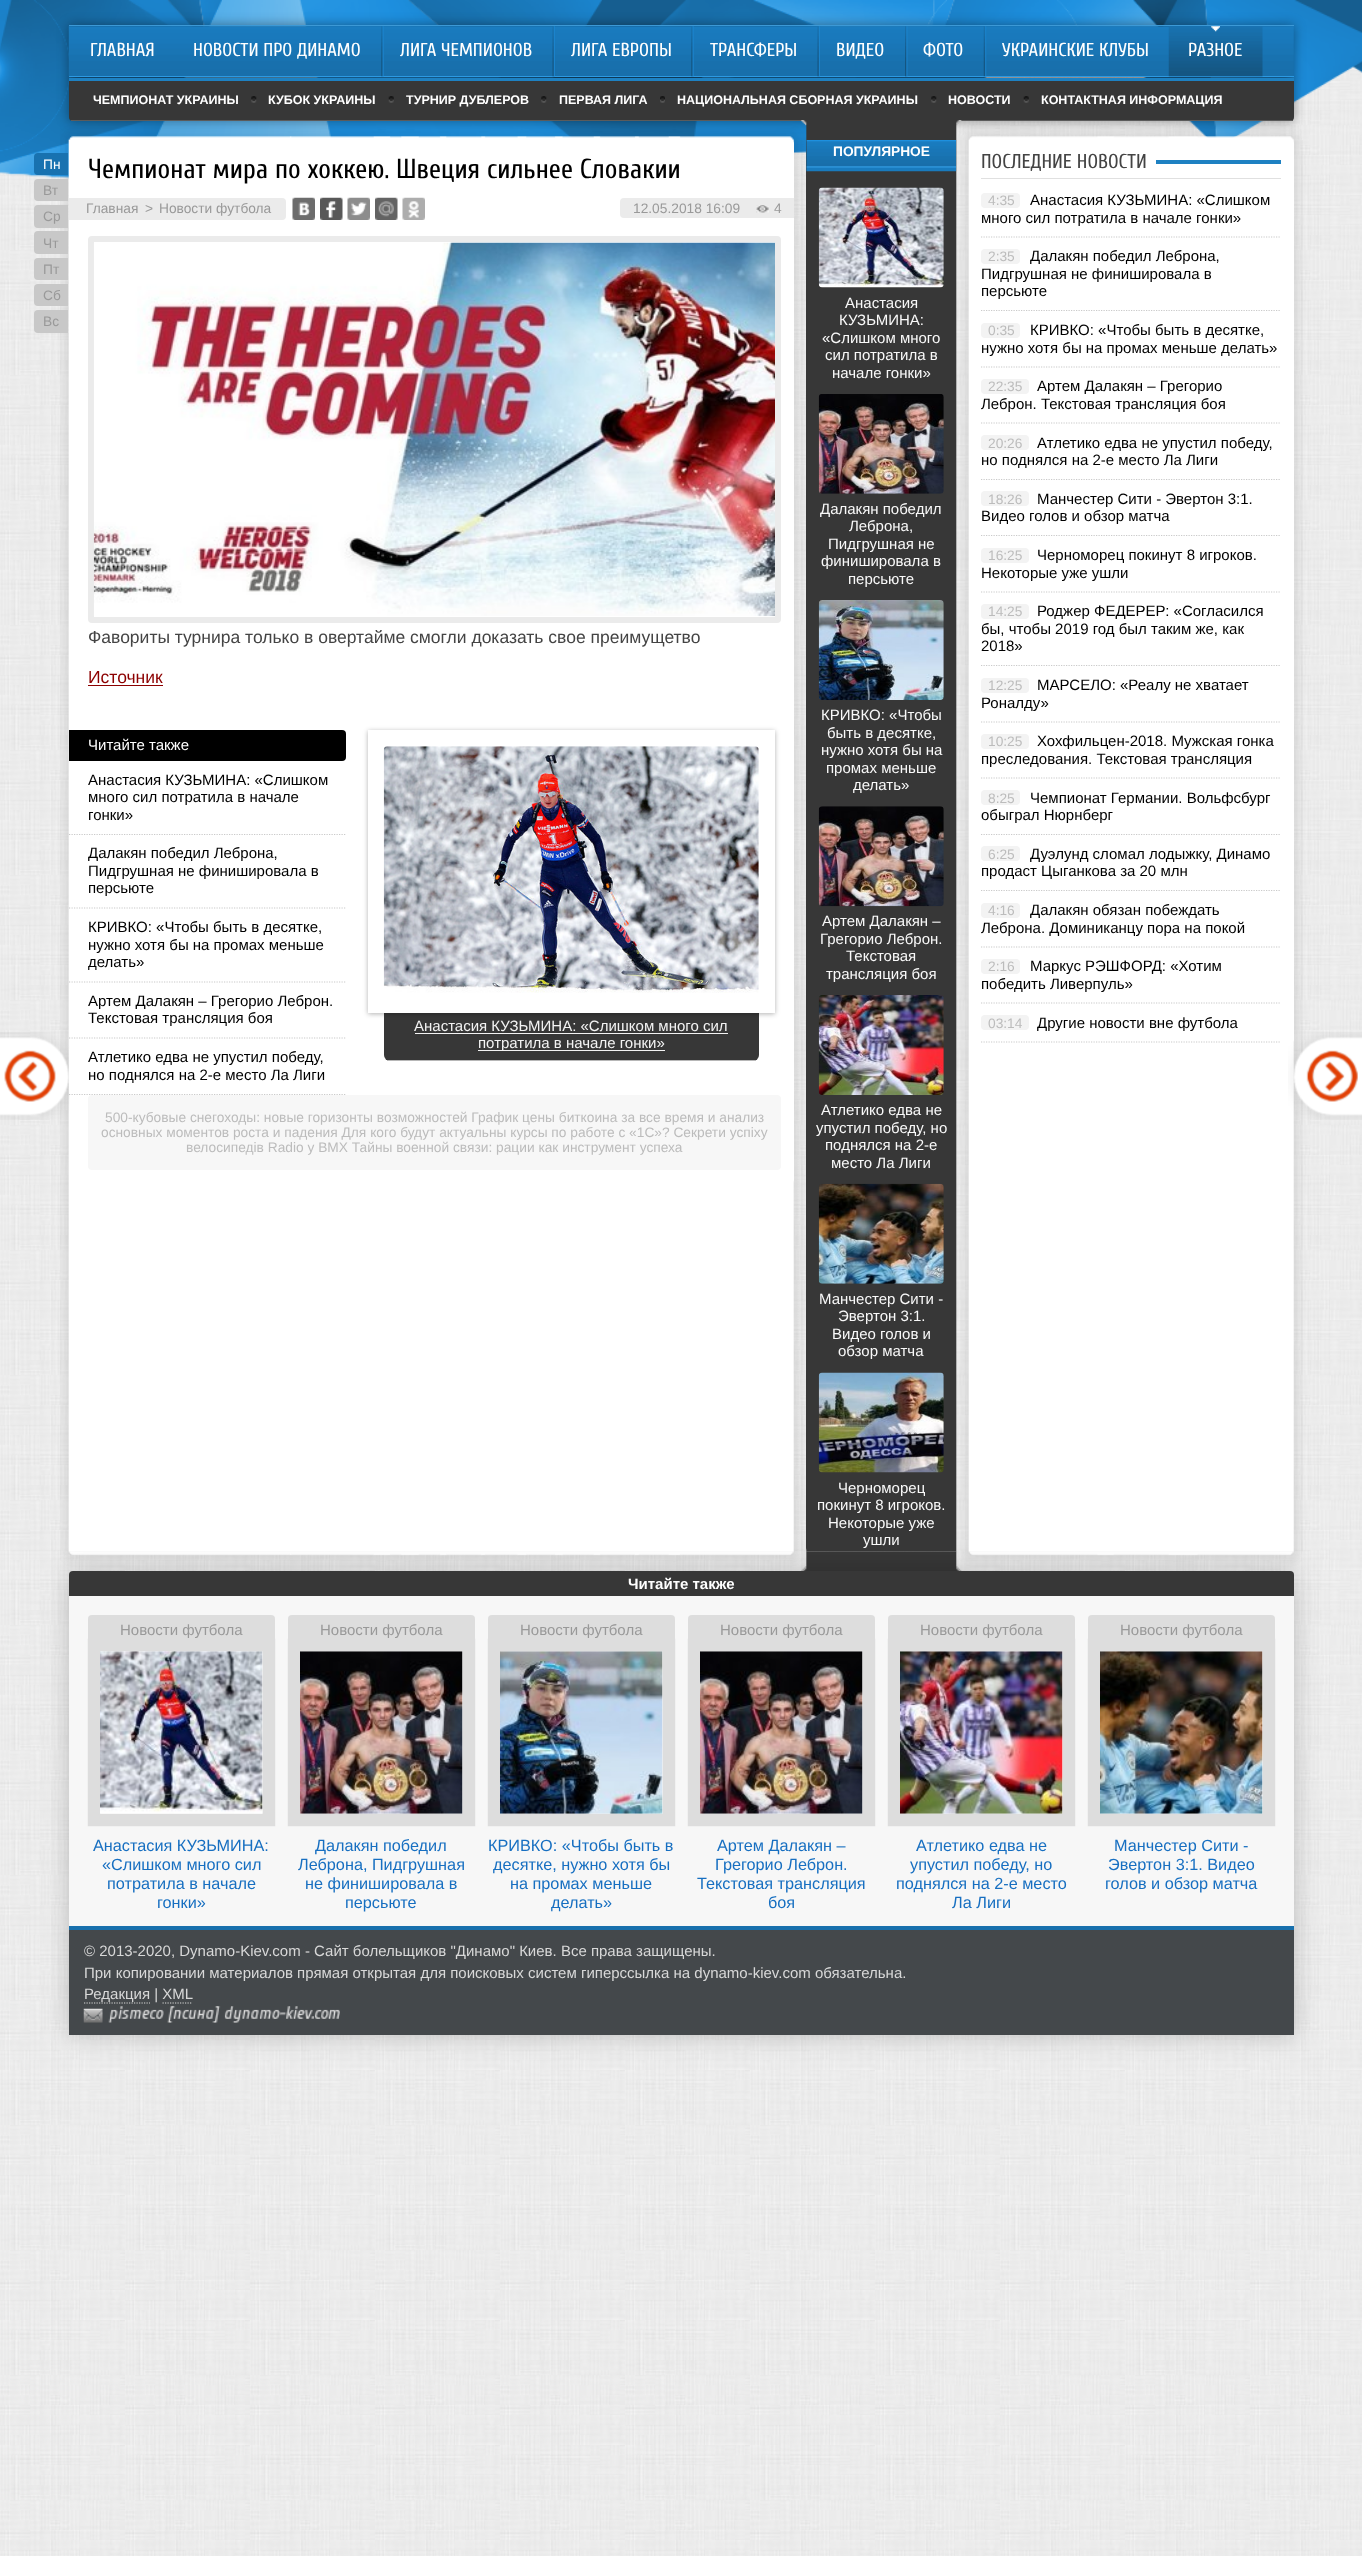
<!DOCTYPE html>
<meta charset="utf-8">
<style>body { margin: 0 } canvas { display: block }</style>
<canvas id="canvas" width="1362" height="2556"></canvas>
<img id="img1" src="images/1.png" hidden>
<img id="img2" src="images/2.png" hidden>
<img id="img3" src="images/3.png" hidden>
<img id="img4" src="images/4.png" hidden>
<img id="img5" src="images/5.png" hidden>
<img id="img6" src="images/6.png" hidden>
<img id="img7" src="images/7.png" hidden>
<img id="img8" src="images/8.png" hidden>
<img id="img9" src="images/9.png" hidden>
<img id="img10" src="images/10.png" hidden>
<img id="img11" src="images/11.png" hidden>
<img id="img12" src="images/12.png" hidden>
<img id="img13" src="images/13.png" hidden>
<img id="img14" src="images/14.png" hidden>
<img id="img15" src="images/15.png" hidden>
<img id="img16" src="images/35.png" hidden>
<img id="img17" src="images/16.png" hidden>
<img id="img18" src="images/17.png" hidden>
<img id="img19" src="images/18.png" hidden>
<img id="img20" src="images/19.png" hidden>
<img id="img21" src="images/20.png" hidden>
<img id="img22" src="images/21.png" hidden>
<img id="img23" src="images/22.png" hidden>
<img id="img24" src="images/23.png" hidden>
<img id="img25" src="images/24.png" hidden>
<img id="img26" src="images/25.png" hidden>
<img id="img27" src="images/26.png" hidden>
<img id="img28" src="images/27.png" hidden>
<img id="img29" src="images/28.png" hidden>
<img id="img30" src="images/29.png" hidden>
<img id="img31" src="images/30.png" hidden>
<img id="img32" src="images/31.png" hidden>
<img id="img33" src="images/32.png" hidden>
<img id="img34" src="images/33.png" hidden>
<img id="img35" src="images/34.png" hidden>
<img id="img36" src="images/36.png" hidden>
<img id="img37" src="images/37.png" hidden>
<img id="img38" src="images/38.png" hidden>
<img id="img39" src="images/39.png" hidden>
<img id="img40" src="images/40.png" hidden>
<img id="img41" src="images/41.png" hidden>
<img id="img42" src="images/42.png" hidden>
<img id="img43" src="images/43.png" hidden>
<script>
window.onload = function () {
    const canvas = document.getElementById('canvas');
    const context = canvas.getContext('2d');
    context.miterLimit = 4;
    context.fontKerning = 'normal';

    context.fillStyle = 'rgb(255, 255, 255)';
    context.fillRect(0, 0, 1362, 2556);
    context.drawImage(document.getElementById('img1'), 0, 0, 1362, 2556);
    context.drawImage(document.getElementById('img2'), 0, 0, 1362, 179);
    context.fillStyle = 'rgba(0, 0, 0, 0.4)';
    context.filter = 'blur(6px)';
    context.beginPath();
    context.rect(69, 25, 1225, 96);
    context.fill();
    context.filter = 'none';
    context.drawImage(document.getElementById('img3'), 68, 26, 1226, 51);
    context.fillStyle = 'rgb(60, 153, 214)';
    context.fillRect(69, 25, 1225, 1);
    context.fillStyle = 'rgb(45, 153, 225)';
    context.fillRect(69, 76, 1225, 1);
    context.drawImage(document.getElementById('img4'), 381, 26, 3, 51);
    context.drawImage(document.getElementById('img5'), 552, 26, 3, 51);
    context.drawImage(document.getElementById('img6'), 691, 26, 3, 51);
    context.drawImage(document.getElementById('img7'), 817, 26, 3, 51);
    context.drawImage(document.getElementById('img8'), 905, 26, 3, 51);
    context.drawImage(document.getElementById('img9'), 983, 26, 4, 51);
    context.drawImage(document.getElementById('img10'), 1168, 26, 95, 51);
    context.drawImage(document.getElementById('img11'), 1211, 26, 9, 6);
    context.fillStyle = 'rgb(30, 129, 194)';
    context.fillRect(69, 78, 1225, 3);
    context.fillStyle = 'rgb(55, 55, 55)';
    context.beginPath();
    context.roundRect(69, 81, 1225, 40, [0, 0, 4, 4]);
    context.fill();
    context.fillStyle = 'rgb(92, 92, 92)';
    context.fillRect(71, 120, 1222, 1);
    context.drawImage(document.getElementById('img12'), 251, 96, 6, 7);
    context.drawImage(document.getElementById('img13'), 388, 96, 6, 7);
    context.drawImage(document.getElementById('img12'), 541, 96, 6, 7);
    context.drawImage(document.getElementById('img14'), 660, 96, 5, 7);
    context.drawImage(document.getElementById('img12'), 931, 96, 6, 7);
    context.drawImage(document.getElementById('img13'), 1023, 96, 6, 7);
    context.drawImage(document.getElementById('img15'), 60, 120, 1242, 20);
    context.drawImage(document.getElementById('img16'), 60, 1551, 1242, 20);
    context.fillStyle = 'rgba(0, 0, 0, 0.2)';
    context.filter = 'blur(12.5px)';
    context.beginPath();
    context.roundRect(69, 1571, 1225, 464, 4);
    context.fill();
    context.filter = 'none';
    context.drawImage(document.getElementById('img17'), 60, 140, 1243, 1412);
    context.fillStyle = 'rgb(255, 255, 255)';
    context.beginPath();
    context.roundRect(69, 140, 725, 1043, 4);
    context.fill();
    context.fillStyle = 'rgb(24, 114, 176)';
    context.beginPath();
    context.roundRect(34, 153, 34, 22, [4, 0, 0, 4]);
    context.fill();
    context.fillStyle = 'rgb(200, 200, 200)';
    context.beginPath();
    context.roundRect(34, 179, 34, 22, [4, 0, 0, 4]);
    context.fill();
    context.beginPath();
    context.roundRect(34, 205, 34, 23, [4, 0, 0, 4]);
    context.fill();
    context.beginPath();
    context.roundRect(34, 231, 34, 23, [4, 0, 0, 4]);
    context.fill();
    context.beginPath();
    context.roundRect(34, 258, 34, 22, [4, 0, 0, 4]);
    context.fill();
    context.beginPath();
    context.roundRect(34, 284, 34, 22, [4, 0, 0, 4]);
    context.fill();
    context.beginPath();
    context.roundRect(34, 310, 34, 23, [4, 0, 0, 4]);
    context.fill();
    context.fillStyle = 'rgb(235, 235, 235)';
    context.beginPath();
    context.roundRect(69, 198, 217, 22, [0, 4, 4, 0]);
    context.fill();
    context.drawImage(document.getElementById('img18'), 292, 197, 23, 23);
    context.drawImage(document.getElementById('img19'), 320, 197, 23, 23);
    context.drawImage(document.getElementById('img20'), 347, 197, 23, 23);
    context.drawImage(document.getElementById('img21'), 375, 197, 23, 23);
    context.drawImage(document.getElementById('img22'), 402, 197, 23, 23);
    context.beginPath();
    context.roundRect(620, 198, 174, 20, [4, 0, 0, 4]);
    context.fill();
    context.drawImage(document.getElementById('img23'), 756, 205, 13, 8);
    context.beginPath();
    context.roundRect(91, 239, 687, 381, 1);
    context.strokeStyle = 'rgb(235, 235, 235)';
    context.lineWidth = 6;
    context.stroke();
    context.drawImage(document.getElementById('img24'), 93, 242, 682, 375);
    context.fillStyle = 'rgb(140, 0, 0)';
    context.fillRect(88, 685, 75, 1);
    context.drawImage(document.getElementById('img25'), 0, 1032, 70, 88);
    context.fillStyle = 'rgb(255, 255, 255)';
    context.beginPath();
    context.roundRect(969, 140, 325, 903, 4);
    context.fill();
    context.drawImage(document.getElementById('img26'), 1288, 1032, 74, 88);
    context.fillRect(69, 1049, 1, 46);
    context.fillStyle = 'rgb(0, 0, 0)';
    context.beginPath();
    context.roundRect(69, 730, 277, 31, [0, 4, 4, 0]);
    context.fill();
    context.beginPath();
    context.moveTo(69, 834.5);
    context.lineTo(346, 834.5);
    context.strokeStyle = 'rgb(202, 202, 202)';
    context.lineWidth = 1.2;
    context.setLineDash([1.25, 1.25]);
    context.stroke();
    context.beginPath();
    context.moveTo(69, 908);
    context.lineTo(346, 908);
    context.stroke();
    context.beginPath();
    context.moveTo(69, 982);
    context.lineTo(346, 982);
    context.stroke();
    context.beginPath();
    context.moveTo(69, 1038);
    context.lineTo(346, 1038);
    context.stroke();
    context.save();
    context.beginPath();
    context.rect(69, 730, 277, 365);
    context.clip();
    context.beginPath();
    context.moveTo(69, 1094.5);
    context.lineTo(346, 1094.5);
    context.stroke();
    context.restore();
    context.fillStyle = 'rgb(55, 55, 55)';
    context.beginPath();
    context.roundRect(384, 1013, 375, 48, [0, 0, 6, 6]);
    context.fill();
    context.fillStyle = 'rgba(0, 0, 0, 0.3)';
    context.filter = 'blur(2.5px)';
    context.beginPath();
    context.rect(368, 731, 407, 283);
    context.fill();
    context.filter = 'none';
    context.fillStyle = 'rgb(255, 255, 255)';
    context.fillRect(368, 730, 407, 283);
    context.drawImage(document.getElementById('img27'), 383, 746, 376, 247);
    context.fillStyle = 'rgb(183, 183, 183)';
    context.fillRect(388, 1060, 368, 1);
    context.fillStyle = 'rgb(243, 243, 243)';
    context.fillRect(415, 1033, 313, 1);
    context.fillRect(478, 1050, 187, 1);
    context.fillStyle = 'rgb(247, 247, 247)';
    context.beginPath();
    context.roundRect(88, 1095, 693, 75, 4);
    context.fill();
    context.fillStyle = 'rgb(55, 55, 55)';
    context.beginPath();
    context.roundRect(806, 140, 150, 1411, [0, 0, 4, 4]);
    context.fill();
    context.drawImage(document.getElementById('img28'), 806, 140, 151, 32);
    context.drawImage(document.getElementById('img29'), 818, 187, 126, 101);
    context.drawImage(document.getElementById('img30'), 818, 394, 126, 100);
    context.drawImage(document.getElementById('img31'), 818, 600, 126, 100);
    context.drawImage(document.getElementById('img32'), 818, 806, 126, 101);
    context.drawImage(document.getElementById('img33'), 818, 995, 126, 100);
    context.drawImage(document.getElementById('img34'), 818, 1183, 126, 101);
    context.drawImage(document.getElementById('img35'), 818, 1372, 126, 101);
    context.fillStyle = 'rgb(30, 129, 194)';
    context.fillRect(1156, 160, 125, 4);
    context.fillStyle = 'rgb(224, 224, 224)';
    context.fillRect(981, 178, 300, 1);
    context.beginPath();
    context.moveTo(981, 237);
    context.lineTo(1281, 237);
    context.stroke();
    context.fillStyle = 'rgb(243, 243, 243)';
    context.beginPath();
    context.roundRect(981, 193, 39, 15, 4);
    context.fill();
    context.beginPath();
    context.moveTo(981, 310.5);
    context.lineTo(1281, 310.5);
    context.stroke();
    context.beginPath();
    context.roundRect(981, 249, 39, 15, 4);
    context.fill();
    context.beginPath();
    context.moveTo(981, 367);
    context.lineTo(1281, 367);
    context.stroke();
    context.beginPath();
    context.roundRect(981, 323, 39, 15, 4);
    context.fill();
    context.beginPath();
    context.moveTo(981, 423);
    context.lineTo(1281, 423);
    context.stroke();
    context.beginPath();
    context.roundRect(981, 379, 48, 15, 4);
    context.fill();
    context.beginPath();
    context.moveTo(981, 479.5);
    context.lineTo(1281, 479.5);
    context.stroke();
    context.beginPath();
    context.roundRect(981, 435, 48, 15, 4);
    context.fill();
    context.beginPath();
    context.moveTo(981, 535.5);
    context.lineTo(1281, 535.5);
    context.stroke();
    context.beginPath();
    context.roundRect(981, 491, 48, 15, 4);
    context.fill();
    context.beginPath();
    context.moveTo(981, 592);
    context.lineTo(1281, 592);
    context.stroke();
    context.beginPath();
    context.roundRect(981, 548, 48, 15, 4);
    context.fill();
    context.beginPath();
    context.moveTo(981, 665.5);
    context.lineTo(1281, 665.5);
    context.stroke();
    context.beginPath();
    context.roundRect(981, 604, 48, 15, 4);
    context.fill();
    context.beginPath();
    context.moveTo(981, 722);
    context.lineTo(1281, 722);
    context.stroke();
    context.beginPath();
    context.roundRect(981, 678, 48, 15, 4);
    context.fill();
    context.beginPath();
    context.moveTo(981, 778);
    context.lineTo(1281, 778);
    context.stroke();
    context.beginPath();
    context.roundRect(981, 734, 48, 15, 4);
    context.fill();
    context.beginPath();
    context.moveTo(981, 834.5);
    context.lineTo(1281, 834.5);
    context.stroke();
    context.beginPath();
    context.roundRect(981, 790, 39, 15, 4);
    context.fill();
    context.beginPath();
    context.moveTo(981, 890.5);
    context.lineTo(1281, 890.5);
    context.stroke();
    context.beginPath();
    context.roundRect(981, 846, 39, 15, 4);
    context.fill();
    context.beginPath();
    context.moveTo(981, 947);
    context.lineTo(1281, 947);
    context.stroke();
    context.beginPath();
    context.roundRect(981, 903, 39, 15, 4);
    context.fill();
    context.beginPath();
    context.moveTo(981, 1003);
    context.lineTo(1281, 1003);
    context.stroke();
    context.beginPath();
    context.roundRect(981, 959, 39, 15, 4);
    context.fill();
    context.beginPath();
    context.moveTo(981, 1042);
    context.lineTo(1281, 1042);
    context.stroke();
    context.beginPath();
    context.roundRect(981, 1015, 48, 15, 4);
    context.fill();
    context.fillStyle = 'rgb(55, 55, 55)';
    context.beginPath();
    context.roundRect(69, 1571, 1225, 25, [4, 4, 0, 0]);
    context.fill();
    context.fillStyle = 'rgb(247, 247, 247)';
    context.fillRect(69, 1596, 1225, 330);
    context.beginPath();
    context.moveTo(94, 1645);
    context.lineTo(269, 1645);
    context.lineTo(269, 1820);
    context.lineTo(94, 1820);
    context.closePath();
    context.strokeStyle = 'rgb(221, 221, 221)';
    context.lineWidth = 12.5;
    context.setLineDash([]);
    context.stroke();
    context.fillStyle = 'rgb(221, 221, 221)';
    context.beginPath();
    context.roundRect(88, 1615, 187, 24, [4, 4, 0, 0]);
    context.fill();
    context.drawImage(document.getElementById('img36'), 100, 1651, 163, 163);
    context.beginPath();
    context.moveTo(294, 1645);
    context.lineTo(469, 1645);
    context.lineTo(469, 1820);
    context.lineTo(294, 1820);
    context.closePath();
    context.stroke();
    context.beginPath();
    context.roundRect(288, 1615, 187, 24, [4, 4, 0, 0]);
    context.fill();
    context.drawImage(document.getElementById('img37'), 300, 1651, 163, 163);
    context.beginPath();
    context.moveTo(494, 1645);
    context.lineTo(669, 1645);
    context.lineTo(669, 1820);
    context.lineTo(494, 1820);
    context.closePath();
    context.stroke();
    context.beginPath();
    context.roundRect(488, 1615, 187, 24, [4, 4, 0, 0]);
    context.fill();
    context.drawImage(document.getElementById('img38'), 500, 1651, 163, 163);
    context.beginPath();
    context.moveTo(694, 1645);
    context.lineTo(869, 1645);
    context.lineTo(869, 1820);
    context.lineTo(694, 1820);
    context.closePath();
    context.stroke();
    context.beginPath();
    context.roundRect(688, 1615, 187, 24, [4, 4, 0, 0]);
    context.fill();
    context.drawImage(document.getElementById('img39'), 700, 1651, 163, 163);
    context.beginPath();
    context.moveTo(894, 1645);
    context.lineTo(1069, 1645);
    context.lineTo(1069, 1820);
    context.lineTo(894, 1820);
    context.closePath();
    context.stroke();
    context.beginPath();
    context.roundRect(888, 1615, 187, 24, [4, 4, 0, 0]);
    context.fill();
    context.drawImage(document.getElementById('img40'), 900, 1651, 163, 163);
    context.beginPath();
    context.moveTo(1094, 1645);
    context.lineTo(1269, 1645);
    context.lineTo(1269, 1820);
    context.lineTo(1094, 1820);
    context.closePath();
    context.stroke();
    context.beginPath();
    context.roundRect(1088, 1615, 187, 24, [4, 4, 0, 0]);
    context.fill();
    context.drawImage(document.getElementById('img41'), 1100, 1651, 163, 163);
    context.fillStyle = 'rgb(68, 72, 75)';
    context.fillRect(69, 1930, 1225, 105);
    context.fillStyle = 'rgb(24, 112, 173)';
    context.fillRect(69, 1926, 1225, 4);
    context.beginPath();
    context.moveTo(84, 2003);
    context.lineTo(150, 2003);
    context.strokeStyle = 'rgb(216, 216, 216)';
    context.lineWidth = 1.2;
    context.setLineDash([1.25, 1.25]);
    context.stroke();
    context.beginPath();
    context.moveTo(162.5, 2003);
    context.lineTo(192.5, 2003);
    context.stroke();
    context.drawImage(document.getElementById('img42'), 83, 2008, 20, 15);
    context.drawImage(document.getElementById('img43'), 108, 2006, 232, 17);
    context.font = '18.75px Cuprum';
    context.fillStyle = 'rgb(255, 255, 255)';
    context.fillText('ГЛАВНАЯ', 90, 56);
    context.fillText('НОВОСТИ ПРО ДИНАМО', 193, 56);
    context.fillText('ЛИГА ЧЕМПИОНОВ', 400, 56);
    context.fillText('ЛИГА ЕВРОПЫ', 571, 56);
    context.fillText('ТРАНСФЕРЫ', 710, 56);
    context.fillText('ВИДЕО', 836, 56);
    context.fillText('ФОТО', 923, 56);
    context.fillText('УКРАИНСКИЕ КЛУБЫ', 1002, 56);
    context.fillText('РАЗНОЕ', 1188, 56);
    context.font = 'bold 12.5px Liberation Sans';
    context.fillText('ЧЕМПИОНАТ УКРАИНЫ', 93, 104);
    context.fillText('КУБОК УКРАИНЫ', 268, 104);
    context.fillText('ТУРНИР ДУБЛЕРОВ', 406, 104);
    context.fillText('ПЕРВАЯ ЛИГА', 559, 104);
    context.fillText('НАЦИОНАЛЬНАЯ СБОРНАЯ УКРАИНЫ', 677, 104);
    context.fillText('НОВОСТИ', 948, 104);
    context.fillText('КОНТАКТНАЯ ИНФОРМАЦИЯ', 1041, 104);
    context.font = '13.75px Liberation Sans';
    context.fillText('Пн', 43, 169);
    context.fillStyle = 'rgb(153, 153, 153)';
    context.fillText('Вт', 43, 195);
    context.fillText('Ср', 43, 221);
    context.fillText('Чт', 43, 248);
    context.fillText('Пт', 43, 274);
    context.fillText('Сб', 43, 300);
    context.fillText('Вс', 43, 326);
    context.font = '27.5px Cuprum';
    context.fillStyle = 'rgb(0, 0, 0)';
    context.fillText('Чемпионат мира по хоккею. Швеция сильнее Словакии', 88, 178);
    context.font = '13.75px Liberation Sans';
    context.fillStyle = 'rgb(153, 153, 153)';
    context.fillText('Главная', 86, 213);
    context.fillText('>', 145, 213);
    context.fillText('Новости футбола', 159, 213);
    context.fillText('12.05.2018 16:09', 633, 213);
    context.fillText('4', 774, 213);
    context.font = '17.5px Liberation Sans';
    context.fillStyle = 'rgb(68, 68, 68)';
    context.fillText('Фавориты турнира только в овертайме смогли доказать свое преимущетво', 88, 643);
    context.fillStyle = 'rgb(140, 0, 0)';
    context.fillText('Источник', 88, 683);
    context.font = '15px Liberation Sans';
    context.fillStyle = 'rgb(255, 255, 255)';
    context.fillText('Читайте также', 88, 750);
    context.fillStyle = 'rgb(0, 0, 0)';
    context.fillText('Анастасия КУЗЬМИНА: «Слишком', 88, 785);
    context.fillText('много сил потратила в начале', 88, 802);
    context.fillText('гонки»', 88, 820);
    context.fillText('Далакян победил Леброна,', 88, 858);
    context.fillText('Пидгрушная не финишировала в', 88, 876);
    context.fillText('персьюте', 88, 893);
    context.fillText('КРИВКО: «Чтобы быть в десятке,', 88, 932);
    context.fillText('нужно хотя бы на промах меньше', 88, 950);
    context.fillText('делать»', 88, 967);
    context.fillText('Артем Далакян – Грегорио Леброн.', 88, 1006);
    context.fillText('Текстовая трансляция боя', 88, 1023);
    context.fillText('Атлетико едва не упустил победу,', 88, 1062);
    context.fillText('но поднялся на 2-е место Ла Лиги', 88, 1080);
    context.fillStyle = 'rgb(243, 243, 243)';
    context.fillText('Анастасия КУЗЬМИНА: «Слишком много сил', 414, 1031);
    context.fillText('потратила в начале гонки»', 478, 1048);
    context.font = '13.75px Liberation Sans';
    context.fillStyle = 'rgb(188, 188, 188)';
    context.fillText('500-кубовые снегоходы: новые горизонты возможностей График цены биткоина за все время и анализ', 105, 1122);
    context.fillText('основных моментов роста и падения Для кого будут актуальны курсы по работе с «1С»? Секрети успіху', 101, 1137);
    context.fillText('велосипедів Radio у BMX Тайны военной связи: рации как инструмент успеха', 186, 1152);
    context.font = 'bold 13.75px Liberation Sans';
    context.fillStyle = 'rgb(255, 255, 255)';
    context.fillText('ПОПУЛЯРНОЕ', 833, 156);
    context.font = '15px Liberation Sans';
    context.fillStyle = 'rgb(249, 249, 249)';
    context.fillText('Анастасия', 845, 308);
    context.fillText('КУЗЬМИНА:', 839, 325);
    context.fillText('«Слишком много', 822, 343);
    context.fillText('сил потратила в', 825, 360);
    context.fillText('начале гонки»', 832, 378);
    context.fillText('Далакян победил', 820, 514);
    context.fillText('Леброна,', 849, 531);
    context.fillText('Пидгрушная не', 828, 549);
    context.fillText('финишировала в', 821, 566);
    context.fillText('персьюте', 848, 584);
    context.fillText('КРИВКО: «Чтобы', 821, 720);
    context.fillText('быть в десятке,', 827, 738);
    context.fillText('нужно хотя бы на', 821, 755);
    context.fillText('промах меньше', 826, 773);
    context.fillText('делать»', 853, 790);
    context.fillText('Артем Далакян –', 822, 926);
    context.fillText('Грегорио Леброн.', 820, 944);
    context.fillText('Текстовая', 846, 961);
    context.fillText('трансляция боя', 826, 979);
    context.fillText('Атлетико едва не', 821, 1115);
    context.fillText('упустил победу, но', 816, 1133);
    context.fillText('поднялся на 2-е', 825, 1150);
    context.fillText('место Ла Лиги', 831, 1168);
    context.fillText('Манчестер Сити -', 819, 1304);
    context.fillText('Эвертон 3:1.', 838, 1321);
    context.fillText('Видео голов и', 832, 1339);
    context.fillText('обзор матча', 838, 1356);
    context.fillText('Черноморец', 838, 1493);
    context.fillText('покинут 8 игроков.', 817, 1510);
    context.fillText('Некоторые уже', 828, 1528);
    context.fillText('ушли', 863, 1545);
    context.font = '20px Cuprum';
    context.fillStyle = 'rgb(68, 68, 68)';
    context.fillText('ПОСЛЕДНИЕ НОВОСТИ', 981, 168);
    context.font = '13.75px Liberation Sans';
    context.fillStyle = 'rgb(188, 188, 188)';
    context.fillText('4:35', 988, 205);
    context.font = '15px Liberation Sans';
    context.fillStyle = 'rgb(0, 0, 0)';
    context.fillText('Анастасия КУЗЬМИНА: «Слишком', 1030, 205);
    context.fillText('много сил потратила в начале гонки»', 981, 223);
    context.font = '13.75px Liberation Sans';
    context.fillStyle = 'rgb(188, 188, 188)';
    context.fillText('2:35', 988, 261);
    context.font = '15px Liberation Sans';
    context.fillStyle = 'rgb(0, 0, 0)';
    context.fillText('Далакян победил Леброна,', 1030, 261);
    context.fillText('Пидгрушная не финишировала в', 981, 279);
    context.fillText('персьюте', 981, 296);
    context.font = '13.75px Liberation Sans';
    context.fillStyle = 'rgb(188, 188, 188)';
    context.fillText('0:35', 988, 335);
    context.font = '15px Liberation Sans';
    context.fillStyle = 'rgb(0, 0, 0)';
    context.fillText('КРИВКО: «Чтобы быть в десятке,', 1030, 335);
    context.fillText('нужно хотя бы на промах меньше делать»', 981, 353);
    context.font = '13.75px Liberation Sans';
    context.fillStyle = 'rgb(188, 188, 188)';
    context.fillText('22:35', 988, 391);
    context.font = '15px Liberation Sans';
    context.fillStyle = 'rgb(0, 0, 0)';
    context.fillText('Артем Далакян – Грегорио', 1037, 391);
    context.fillText('Леброн. Текстовая трансляция боя', 981, 409);
    context.font = '13.75px Liberation Sans';
    context.fillStyle = 'rgb(188, 188, 188)';
    context.fillText('20:26', 988, 448);
    context.font = '15px Liberation Sans';
    context.fillStyle = 'rgb(0, 0, 0)';
    context.fillText('Атлетико едва не упустил победу,', 1037, 448);
    context.fillText('но поднялся на 2-е место Ла Лиги', 981, 465);
    context.font = '13.75px Liberation Sans';
    context.fillStyle = 'rgb(188, 188, 188)';
    context.fillText('18:26', 988, 504);
    context.font = '15px Liberation Sans';
    context.fillStyle = 'rgb(0, 0, 0)';
    context.fillText('Манчестер Сити - Эвертон 3:1.', 1037, 504);
    context.fillText('Видео голов и обзор матча', 981, 521);
    context.font = '13.75px Liberation Sans';
    context.fillStyle = 'rgb(188, 188, 188)';
    context.fillText('16:25', 988, 560);
    context.font = '15px Liberation Sans';
    context.fillStyle = 'rgb(0, 0, 0)';
    context.fillText('Черноморец покинут 8 игроков.', 1037, 560);
    context.fillText('Некоторые уже ушли', 981, 578);
    context.font = '13.75px Liberation Sans';
    context.fillStyle = 'rgb(188, 188, 188)';
    context.fillText('14:25', 988, 616);
    context.font = '15px Liberation Sans';
    context.fillStyle = 'rgb(0, 0, 0)';
    context.fillText('Роджер ФЕДЕРЕР: «Согласился', 1037, 616);
    context.fillText('бы, чтобы 2019 год был таким же, как', 981, 634);
    context.fillText('2018»', 981, 651);
    context.font = '13.75px Liberation Sans';
    context.fillStyle = 'rgb(188, 188, 188)';
    context.fillText('12:25', 988, 690);
    context.font = '15px Liberation Sans';
    context.fillStyle = 'rgb(0, 0, 0)';
    context.fillText('МАРСЕЛО: «Реалу не хватает', 1037, 690);
    context.fillText('Роналду»', 981, 708);
    context.font = '13.75px Liberation Sans';
    context.fillStyle = 'rgb(188, 188, 188)';
    context.fillText('10:25', 988, 746);
    context.font = '15px Liberation Sans';
    context.fillStyle = 'rgb(0, 0, 0)';
    context.fillText('Хохфильцен-2018. Мужская гонка', 1037, 746);
    context.fillText('преследования. Текстовая трансляция', 981, 764);
    context.font = '13.75px Liberation Sans';
    context.fillStyle = 'rgb(188, 188, 188)';
    context.fillText('8:25', 988, 803);
    context.font = '15px Liberation Sans';
    context.fillStyle = 'rgb(0, 0, 0)';
    context.fillText('Чемпионат Германии. Вольфсбург', 1030, 803);
    context.fillText('обыграл Нюрнберг', 981, 820);
    context.font = '13.75px Liberation Sans';
    context.fillStyle = 'rgb(188, 188, 188)';
    context.fillText('6:25', 988, 859);
    context.font = '15px Liberation Sans';
    context.fillStyle = 'rgb(0, 0, 0)';
    context.fillText('Дуэлунд сломал лодыжку, Динамо', 1030, 859);
    context.fillText('продаст Цыганкова за 20 млн', 981, 876);
    context.font = '13.75px Liberation Sans';
    context.fillStyle = 'rgb(188, 188, 188)';
    context.fillText('4:16', 988, 915);
    context.font = '15px Liberation Sans';
    context.fillStyle = 'rgb(0, 0, 0)';
    context.fillText('Далакян обязан побеждать', 1030, 915);
    context.fillText('Леброна. Доминиканцу пора на покой', 981, 933);
    context.font = '13.75px Liberation Sans';
    context.fillStyle = 'rgb(188, 188, 188)';
    context.fillText('2:16', 988, 971);
    context.font = '15px Liberation Sans';
    context.fillStyle = 'rgb(0, 0, 0)';
    context.fillText('Маркус РЭШФОРД: «Хотим', 1030, 971);
    context.fillText('победить Ливерпуль»', 981, 989);
    context.font = '13.75px Liberation Sans';
    context.fillStyle = 'rgb(188, 188, 188)';
    context.fillText('03:14', 988, 1028);
    context.font = '15px Liberation Sans';
    context.fillStyle = 'rgb(0, 0, 0)';
    context.fillText('Другие новости вне футбола', 1037, 1028);
    context.font = 'bold 15px Liberation Sans';
    context.fillStyle = 'rgb(255, 255, 255)';
    context.fillText('Читайте также', 628, 1589);
    context.font = '15px Liberation Sans';
    context.fillStyle = 'rgb(153, 153, 153)';
    context.fillText('Новости футбола', 120, 1635);
    context.font = '16.25px Liberation Sans';
    context.fillStyle = 'rgb(23, 111, 193)';
    context.fillText('Анастасия КУЗЬМИНА:', 93, 1851);
    context.fillText('«Слишком много сил', 102, 1870);
    context.fillText('потратила в начале', 107, 1889);
    context.fillText('гонки»', 157, 1908);
    context.font = '15px Liberation Sans';
    context.fillStyle = 'rgb(153, 153, 153)';
    context.fillText('Новости футбола', 320, 1635);
    context.font = '16.25px Liberation Sans';
    context.fillStyle = 'rgb(23, 111, 193)';
    context.fillText('Далакян победил', 315, 1851);
    context.fillText('Леброна, Пидгрушная', 298, 1870);
    context.fillText('не финишировала в', 305, 1889);
    context.fillText('персьюте', 345, 1908);
    context.font = '15px Liberation Sans';
    context.fillStyle = 'rgb(153, 153, 153)';
    context.fillText('Новости футбола', 520, 1635);
    context.font = '16.25px Liberation Sans';
    context.fillStyle = 'rgb(23, 111, 193)';
    context.fillText('КРИВКО: «Чтобы быть в', 488, 1851);
    context.fillText('десятке, нужно хотя бы', 493, 1870);
    context.fillText('на промах меньше', 510, 1889);
    context.fillText('делать»', 551, 1908);
    context.font = '15px Liberation Sans';
    context.fillStyle = 'rgb(153, 153, 153)';
    context.fillText('Новости футбола', 720, 1635);
    context.font = '16.25px Liberation Sans';
    context.fillStyle = 'rgb(23, 111, 193)';
    context.fillText('Артем Далакян –', 717, 1851);
    context.fillText('Грегорио Леброн.', 715, 1870);
    context.fillText('Текстовая трансляция', 697, 1889);
    context.fillText('боя', 768, 1908);
    context.font = '15px Liberation Sans';
    context.fillStyle = 'rgb(153, 153, 153)';
    context.fillText('Новости футбола', 920, 1635);
    context.font = '16.25px Liberation Sans';
    context.fillStyle = 'rgb(23, 111, 193)';
    context.fillText('Атлетико едва не', 916, 1851);
    context.fillText('упустил победу, но', 910, 1870);
    context.fillText('поднялся на 2-е место', 896, 1889);
    context.fillText('Ла Лиги', 952, 1908);
    context.font = '15px Liberation Sans';
    context.fillStyle = 'rgb(153, 153, 153)';
    context.fillText('Новости футбола', 1120, 1635);
    context.font = '16.25px Liberation Sans';
    context.fillStyle = 'rgb(23, 111, 193)';
    context.fillText('Манчестер Сити -', 1114, 1851);
    context.fillText('Эвертон 3:1. Видео', 1108, 1870);
    context.fillText('голов и обзор матча', 1105, 1889);
    context.font = '15px Liberation Sans';
    context.fillStyle = 'rgb(216, 216, 216)';
    context.fillText('© 2013-2020, Dynamo-Kiev.com - Сайт болельщиков "Динамо" Киев. Все права защищены.', 84, 1956);
    context.fillText('При копировании материалов прямая открытая для поисковых систем гиперссылка на dynamo-kiev.com обязательна.', 84, 1978);
    context.fillText('Редакция | XML', 84, 1999);
};
</script>
